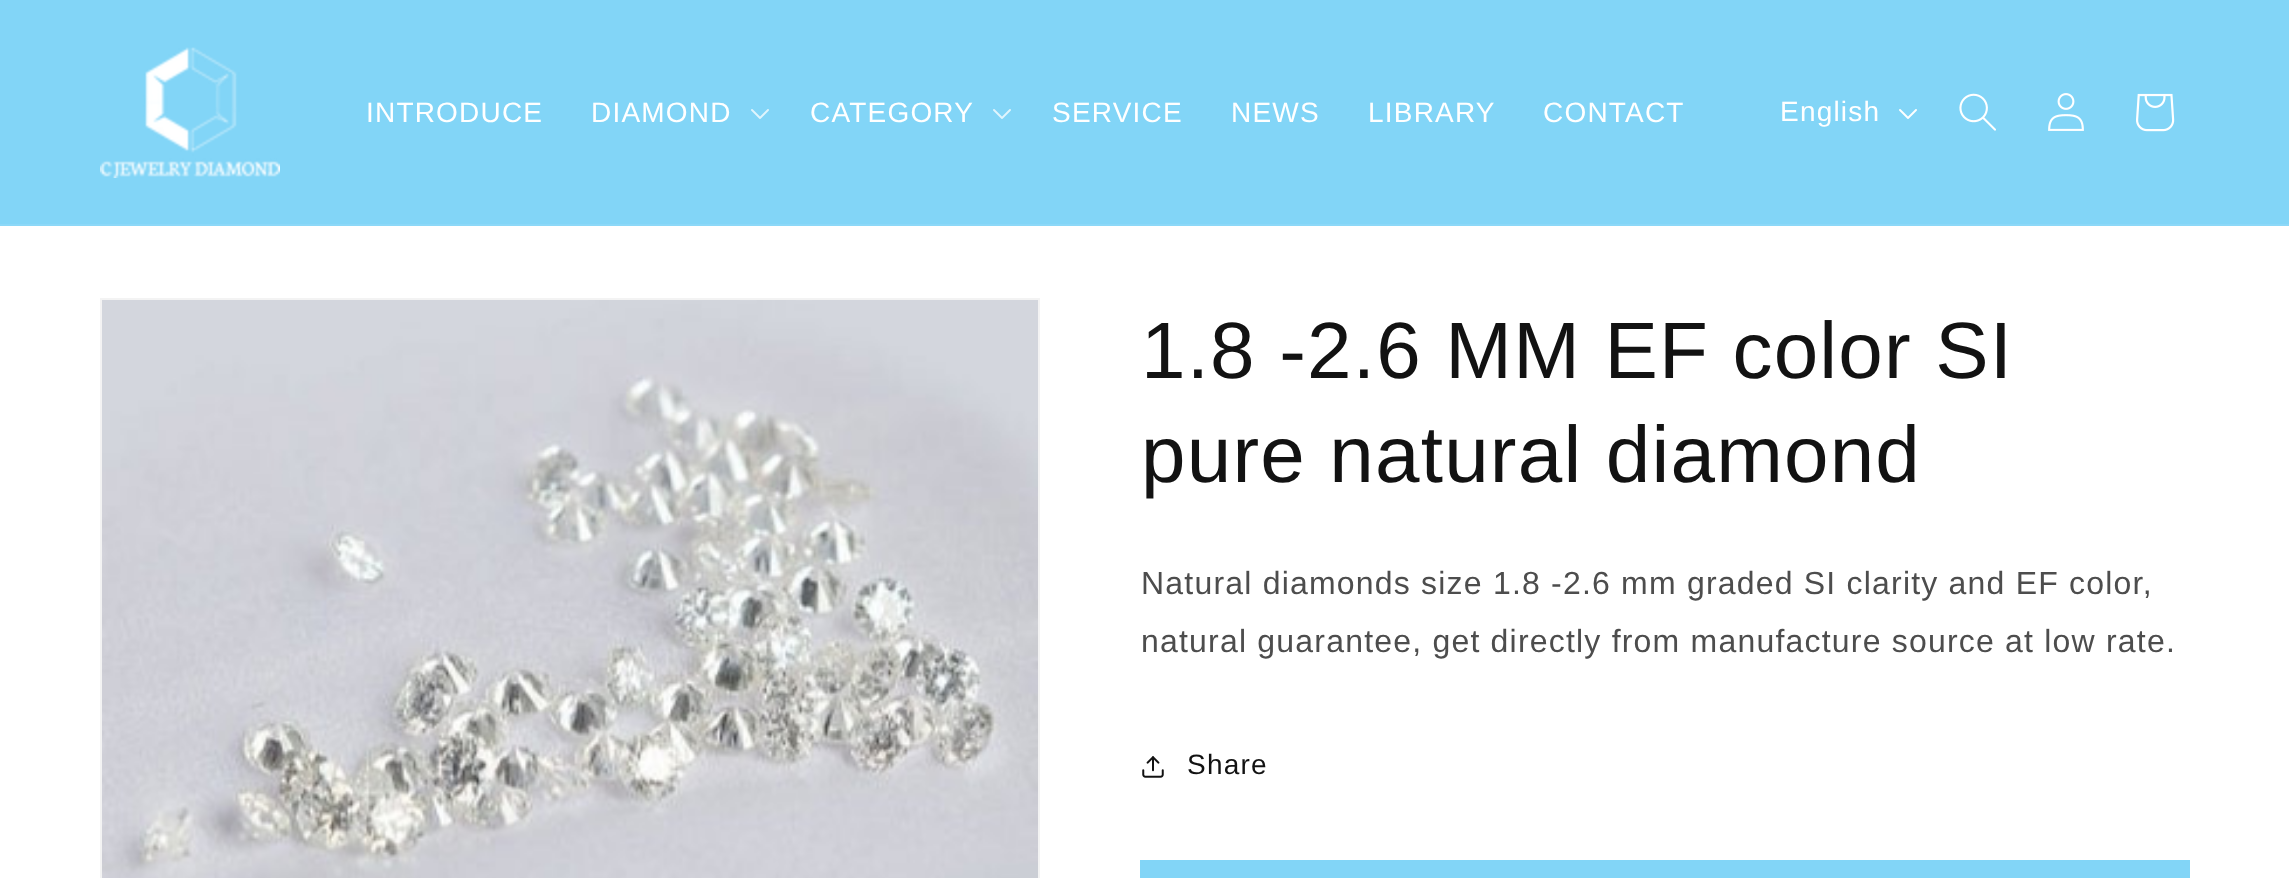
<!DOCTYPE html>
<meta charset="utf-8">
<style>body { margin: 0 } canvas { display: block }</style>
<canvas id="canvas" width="2289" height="878"></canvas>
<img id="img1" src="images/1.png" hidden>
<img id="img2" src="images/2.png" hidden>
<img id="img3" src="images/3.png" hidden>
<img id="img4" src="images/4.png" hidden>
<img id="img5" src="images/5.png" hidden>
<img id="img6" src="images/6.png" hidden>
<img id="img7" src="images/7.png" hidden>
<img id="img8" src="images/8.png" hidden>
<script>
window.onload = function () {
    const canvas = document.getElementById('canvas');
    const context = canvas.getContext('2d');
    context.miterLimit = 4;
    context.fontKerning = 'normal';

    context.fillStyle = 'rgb(255, 255, 255)';
    context.fillRect(0, 0, 2289, 878);
    context.fillStyle = 'rgb(130, 213, 247)';
    context.fillRect(0, 0, 2289, 224);
    context.fillStyle = 'rgb(140, 216, 248)';
    context.fillRect(0, 224, 2289, 2);
    context.drawImage(document.getElementById('img1'), 100, 47, 180, 131);
    context.drawImage(document.getElementById('img2'), 751, 109, 18, 10);
    context.drawImage(document.getElementById('img2'), 993, 109, 18, 10);
    context.drawImage(document.getElementById('img3'), 1899, 109, 18, 10);
    context.drawImage(document.getElementById('img4'), 1959, 93, 37, 38);
    context.drawImage(document.getElementById('img5'), 2048, 93, 36, 38);
    context.drawImage(document.getElementById('img6'), 2136, 93, 39, 39);
    context.strokeStyle = 'rgb(243, 243, 243)';
    context.lineWidth = 2;
    context.strokeRect(101, 299, 938, 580);
    context.drawImage(document.getElementById('img7'), 102, 300, 936, 578);
    context.drawImage(document.getElementById('img8'), 1142, 756, 22, 22);
    context.fillStyle = 'rgb(130, 213, 247)';
    context.fillRect(1140, 860, 1050, 18);
    context.letterSpacing = '1.2px';
    context.font = '28px Liberation Sans';
    context.fillStyle = 'rgb(255, 255, 255)';
    context.fillText('INTRODUCE', 366, 122);
    context.fillText('DIAMOND', 591, 122);
    context.fillText('CATEGORY', 810, 122);
    context.fillText('SERVICE', 1052, 122);
    context.fillText('NEWS', 1231, 122);
    context.fillText('LIBRARY', 1368, 122);
    context.fillText('CONTACT', 1543, 122);
    context.fillText('English', 1780, 121);
    context.font = '80px Liberation Sans';
    context.fillStyle = 'rgb(18, 18, 18)';
    context.fillText('1.8 -2.6 MM EF color SI', 1141, 378);
    context.fillText('pure natural diamond', 1141, 482);
    context.font = '32px Liberation Sans';
    context.fillStyle = 'rgb(77, 77, 77)';
    context.fillText('Natural diamonds size 1.8 -2.6 mm graded SI clarity and EF color,', 1141, 594);
    context.fillText('natural guarantee, get directly from manufacture source at low rate.', 1141, 652);
    context.font = '28px Liberation Sans';
    context.fillStyle = 'rgb(18, 18, 18)';
    context.fillText('Share', 1187, 774);
};
</script>
